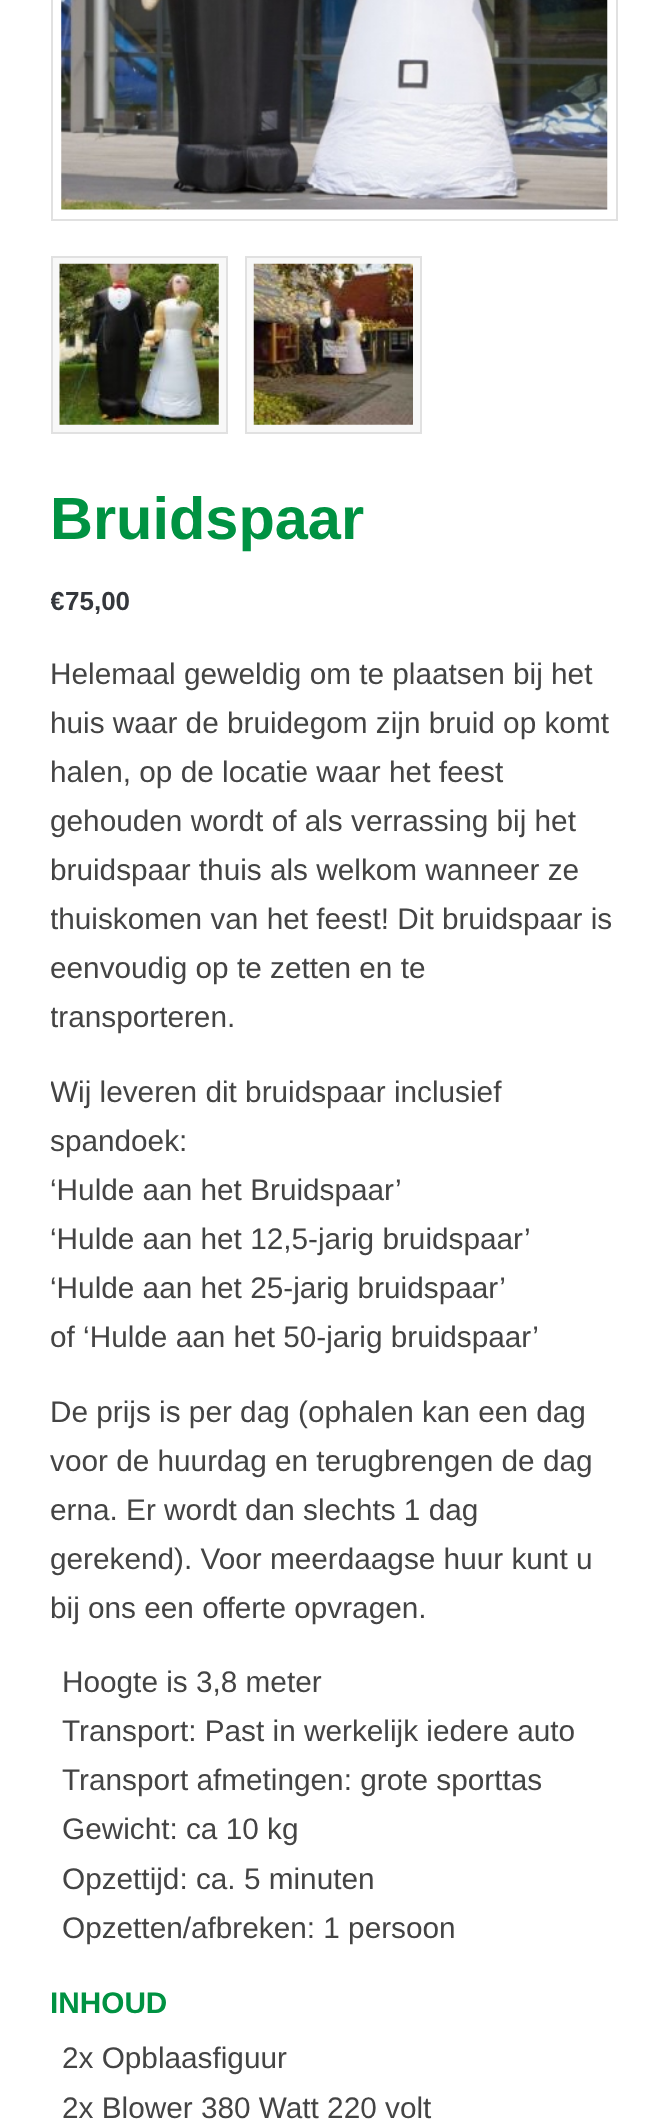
<!DOCTYPE html>
<meta charset="utf-8">
<style>body { margin: 0 } canvas { display: block }</style>
<canvas id="canvas" width="668" height="2128"></canvas>
<img id="img1" src="images/1.png" hidden>
<img id="img2" src="images/2.png" hidden>
<img id="img3" src="images/3.png" hidden>
<script>
window.onload = function () {
    const canvas = document.getElementById('canvas');
    const context = canvas.getContext('2d');
    context.miterLimit = 4;
    context.fontKerning = 'normal';

    context.fillStyle = 'rgb(255, 255, 255)';
    context.fillRect(0, 0, 668, 2128);
    context.strokeStyle = 'rgb(225, 225, 225)';
    context.lineWidth = 2;
    context.strokeRect(52, -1, 565, 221);
    context.drawImage(document.getElementById('img1'), 61, 0, 547, 210);
    context.fillStyle = 'rgb(248, 248, 248)';
    context.beginPath();
    context.rect(52, 257, 175, 176);
    context.fill();
    context.stroke();
    context.drawImage(document.getElementById('img2'), 59, 263, 160, 162);
    context.beginPath();
    context.rect(246, 257, 175, 176);
    context.fill();
    context.stroke();
    context.drawImage(document.getElementById('img3'), 253, 263, 160, 162);
    context.font = 'bold 59.5px Liberation Sans';
    context.fillStyle = 'rgb(0, 146, 66)';
    context.fillText('Bruidspaar', 50, 539);
    context.save();
    context.beginPath();
    context.rect(51, 487, 567, 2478);
    context.clip();
    context.font = 'bold 26px Liberation Sans';
    context.fillStyle = 'rgb(52, 55, 60)';
    context.fillText('€', 50, 610);
    context.restore();
    context.font = 'bold 26px Liberation Sans';
    context.fillStyle = 'rgb(52, 55, 60)';
    context.fillText('75,00', 65, 610);
    context.font = '29.75px Liberation Sans';
    context.fillStyle = 'rgb(68, 68, 68)';
    context.fillText('Helemaal geweldig om te plaatsen bij het', 50, 684);
    context.fillText('huis waar de bruidegom zijn bruid op komt', 50, 733);
    context.fillText('halen, op de locatie waar het feest', 50, 782);
    context.fillText('gehouden wordt of als verrassing bij het', 50, 831);
    context.fillText('bruidspaar thuis als welkom wanneer ze', 50, 880);
    context.save();
    context.beginPath();
    context.rect(51, 487, 567, 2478);
    context.clip();
    context.fillText('thuiskomen van het feest! Dit bruidspaar is', 50, 929);
    context.restore();
    context.fillText('eenvoudig op te zetten en te', 50, 978);
    context.save();
    context.beginPath();
    context.rect(51, 487, 567, 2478);
    context.clip();
    context.fillText('transporteren.', 50, 1027);
    context.fillText('Wij leveren dit bruidspaar inclusief', 50, 1102);
    context.restore();
    context.fillText('spandoek:', 50, 1151);
    context.fillText('‘Hulde aan het Bruidspaar’', 50, 1200);
    context.fillText('‘Hulde aan het 12,5-jarig bruidspaar’', 50, 1249);
    context.fillText('‘Hulde aan het 25-jarig bruidspaar’', 50, 1298);
    context.fillText('of ‘Hulde aan het 50-jarig bruidspaar’', 50, 1347);
    context.fillText('De prijs is per dag (ophalen kan een dag', 50, 1422);
    context.fillText('voor de huurdag en terugbrengen de dag', 50, 1471);
    context.fillText('erna. Er wordt dan slechts 1 dag', 50, 1520);
    context.fillText('gerekend). Voor meerdaagse huur kunt u', 50, 1569);
    context.fillText('bij ons een offerte opvragen.', 50, 1618);
    context.fillText('Hoogte is 3,8 meter', 62, 1692);
    context.fillText('Transport: Past in werkelijk iedere auto', 62, 1741);
    context.fillText('Transport afmetingen: grote sporttas', 62, 1790);
    context.fillText('Gewicht: ca 10 kg', 62, 1839);
    context.fillText('Opzettijd: ca. 5 minuten', 62, 1889);
    context.fillText('Opzetten/afbreken: 1 persoon', 62, 1938);
    context.font = 'bold 29.75px Liberation Sans';
    context.fillStyle = 'rgb(0, 146, 66)';
    context.fillText('INHOUD', 50, 2013);
    context.font = '29.75px Liberation Sans';
    context.fillStyle = 'rgb(68, 68, 68)';
    context.fillText('2x Opblaasfiguur', 62, 2068);
    context.fillText('2x Blower 380 Watt 220 volt', 62, 2118);
};
</script>
